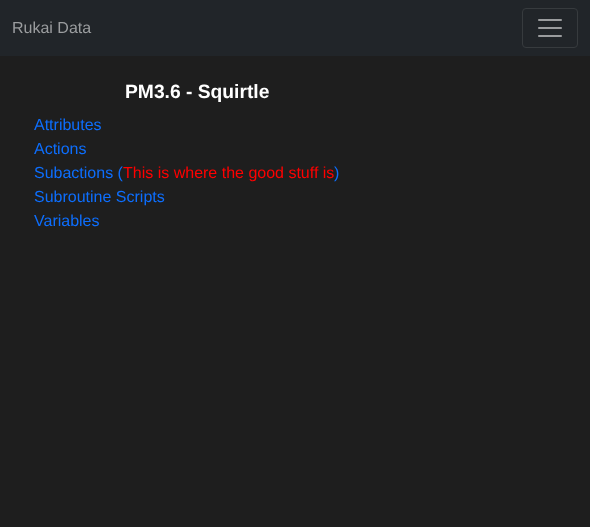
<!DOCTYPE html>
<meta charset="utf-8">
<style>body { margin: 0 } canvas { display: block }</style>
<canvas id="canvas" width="590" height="527"></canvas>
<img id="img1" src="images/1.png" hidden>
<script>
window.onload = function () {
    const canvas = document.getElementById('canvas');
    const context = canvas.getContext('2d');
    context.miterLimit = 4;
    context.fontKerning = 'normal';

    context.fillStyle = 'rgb(30, 30, 30)';
    context.fillRect(0, 0, 590, 527);
    context.fillStyle = 'rgb(33, 37, 41)';
    context.fillRect(0, 0, 590, 56);
    context.beginPath();
    context.roundRect(522.5, 8.5, 55, 39, 3.5);
    context.strokeStyle = 'rgb(55, 59, 62)';
    context.stroke();
    context.drawImage(document.getElementById('img1'), 538, 19, 24, 18);
    context.font = '16px Liberation Sans';
    context.fillStyle = 'rgb(155, 157, 159)';
    context.fillText('Rukai Data', 12, 33);
    context.font = 'bold 19.25px Liberation Sans';
    context.fillStyle = 'rgb(255, 255, 255)';
    context.fillText('PM3.6 - Squirtle', 125, 98);
    context.font = '16px Liberation Sans';
    context.fillStyle = 'rgb(13, 110, 253)';
    context.fillText('Attributes', 34, 130);
    context.fillText('Actions', 34, 154);
    context.fillText('Subactions (', 34, 178);
    context.fillStyle = 'rgb(255, 0, 0)';
    context.fillText('This is where the good stuff is', 123, 178);
    context.fillStyle = 'rgb(13, 110, 253)';
    context.fillText(')', 334, 178);
    context.fillText('Subroutine Scripts', 34, 202);
    context.fillText('Variables', 34, 226);
};
</script>
